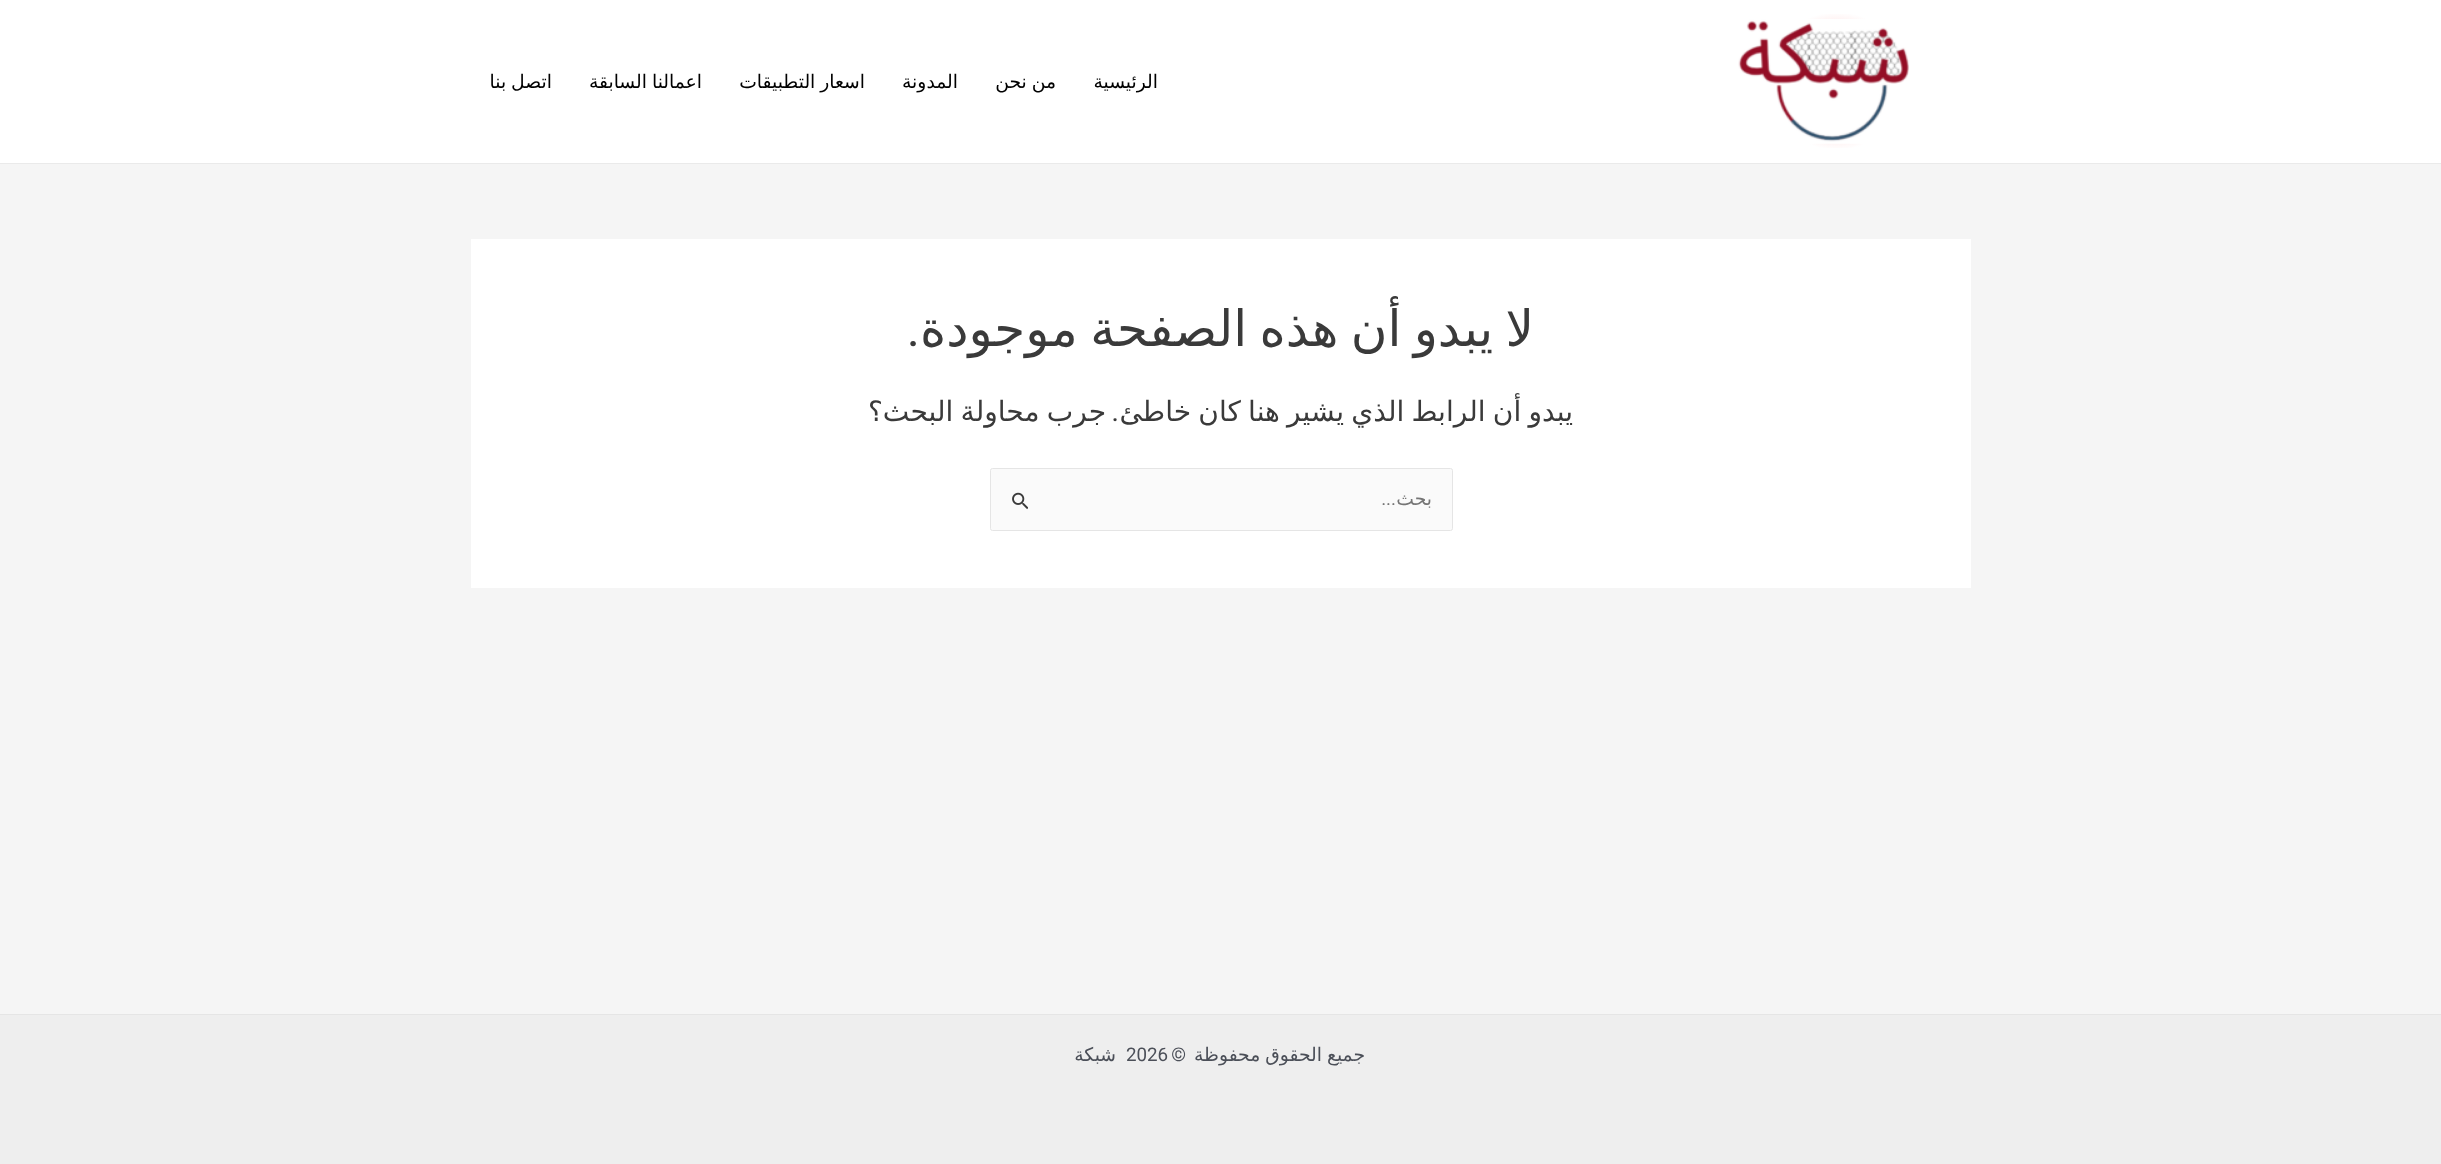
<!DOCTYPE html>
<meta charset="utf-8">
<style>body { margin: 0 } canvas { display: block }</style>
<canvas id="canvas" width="2441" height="1164"></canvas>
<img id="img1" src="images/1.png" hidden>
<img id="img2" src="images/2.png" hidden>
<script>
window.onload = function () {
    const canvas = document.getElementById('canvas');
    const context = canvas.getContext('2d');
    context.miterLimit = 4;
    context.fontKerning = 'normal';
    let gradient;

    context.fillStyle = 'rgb(245, 245, 245)';
    context.fillRect(0, 0, 2441, 1164);
    context.fillStyle = 'rgb(255, 255, 255)';
    context.fillRect(0, 0, 2441, 163);
    context.fillStyle = 'rgb(234, 234, 234)';
    context.fillRect(0, 163, 2441, 1);
    gradient = context.createRadialGradient(1837, 81, 0, 1837, 81, 157);
    gradient.addColorStop(0, 'rgb(206, 15, 15)');
    gradient.addColorStop(0.16, 'rgb(226, 66, 66)');
    gradient.addColorStop(0.32, 'rgb(255, 228, 228)');
    gradient.addColorStop(0.44, 'rgb(255, 255, 255)');
    gradient.addColorStop(1, 'rgb(255, 255, 255)');
    context.fillStyle = gradient;
    context.fillRect(1770, 14, 134, 134);
    context.drawImage(document.getElementById('img1'), 1738, 19, 171, 125);
    context.fillStyle = 'rgb(255, 255, 255)';
    context.fillRect(471, 239, 1500, 349);
    context.fillStyle = 'rgb(250, 250, 250)';
    context.beginPath();
    context.roundRect(990.5, 468.5, 462, 62, 2);
    context.fill();
    context.strokeStyle = 'rgb(229, 229, 229)';
    context.stroke();
    context.drawImage(document.getElementById('img2'), 1012, 492, 16, 18);
    context.fillStyle = 'rgb(238, 238, 238)';
    context.fillRect(0, 1015, 2441, 149);
    context.fillStyle = 'rgb(229, 229, 229)';
    context.fillRect(0, 1014, 2441, 1);
    context.direction = 'rtl';
    context.font = '18.75px DejaVu Sans';
    context.fillStyle = 'rgb(0, 0, 0)';
    context.fillText('الرئيسية', 1158, 88);
    context.wordSpacing = '-1px';
    context.fillText('من نحن', 1056, 88);
    context.wordSpacing = '0px';
    context.fillText('المدونة', 958, 88);
    context.wordSpacing = '-1px';
    context.fillText('اسعار التطبيقات', 865, 88);
    context.fillText('اعمالنا السابقة', 702, 88);
    context.fillText('اتصل بنا', 552, 88);
    context.wordSpacing = '-3.5px';
    context.font = '50px DejaVu Sans';
    context.fillStyle = 'rgb(58, 58, 58)';
    context.fillText('لا يبدو أن هذه الصفحة موجودة', 1534, 346);
    context.wordSpacing = '0px';
    context.font = '50px Roboto';
    context.fillText('.', 920, 346);
    context.wordSpacing = '-1.75px';
    context.font = '28.1px DejaVu Sans';
    context.fillText('يبدو أن الرابط الذي يشير هنا كان خاطئ', 1573, 421);
    context.wordSpacing = '0px';
    context.font = '28.1px Roboto';
    context.fillText('.', 1119, 421);
    context.wordSpacing = '-1.75px';
    context.font = '28.1px DejaVu Sans';
    context.fillText('جرب محاولة البحث؟', 1106, 421);
    context.wordSpacing = '0px';
    context.font = '18.75px DejaVu Sans';
    context.fillStyle = 'rgb(117, 117, 117)';
    context.fillText('بحث', 1432, 505);
    context.font = '18.75px Roboto';
    context.fillText('...', 1396, 505);
    context.wordSpacing = '-1px';
    context.font = '18.75px DejaVu Sans';
    context.fillStyle = 'rgb(75, 79, 88)';
    context.fillText('جميع الحقوق محفوظة', 1365, 1061);
    context.wordSpacing = '0px';
    context.font = '18.75px Roboto';
    context.fillText('©', 1186, 1061);
    context.direction = 'ltr';
    context.fillText('2026', 1126, 1061);
    context.direction = 'rtl';
    context.font = '18.75px DejaVu Sans';
    context.fillText('شبكة', 1116, 1061);
};
</script>
